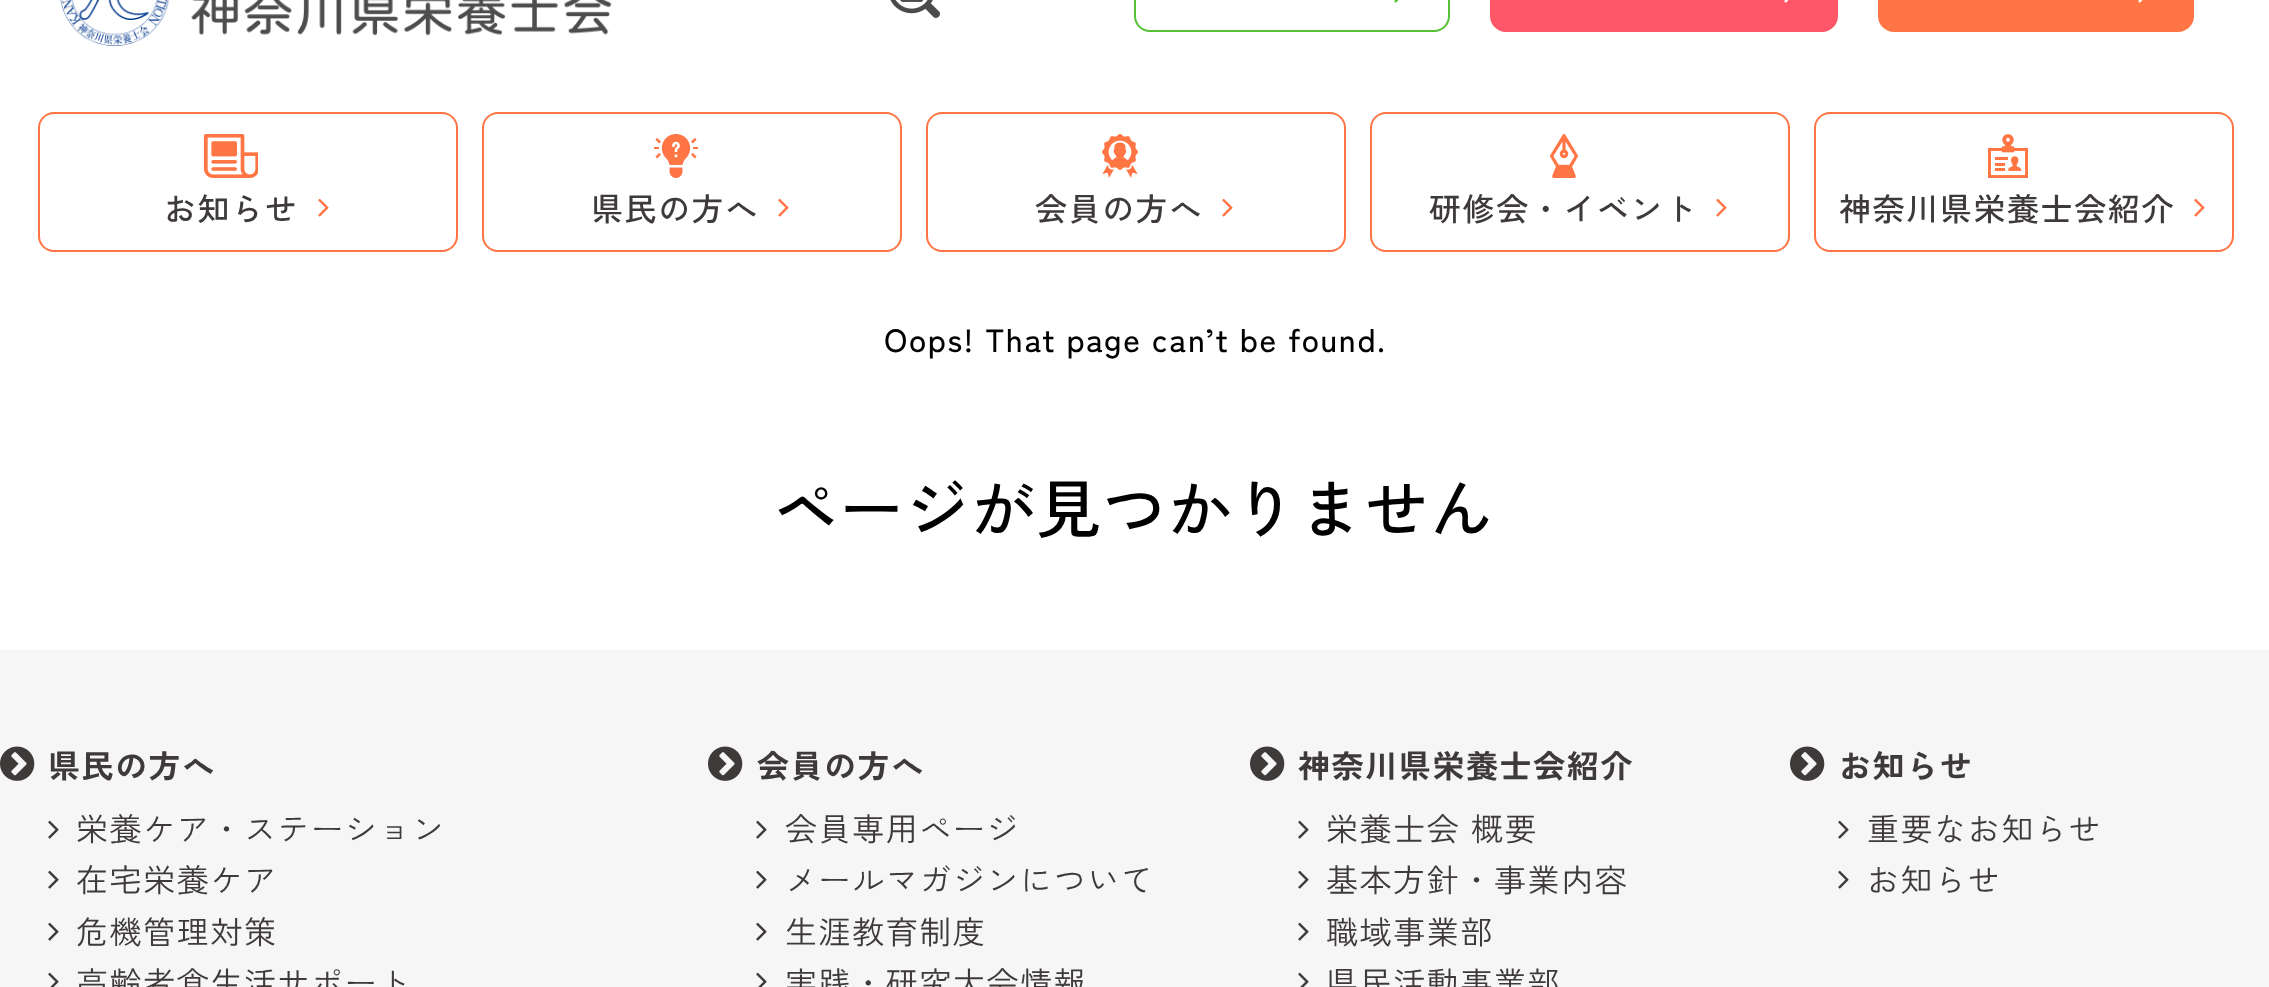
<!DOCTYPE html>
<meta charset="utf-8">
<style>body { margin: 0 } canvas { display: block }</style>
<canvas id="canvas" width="2269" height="987"></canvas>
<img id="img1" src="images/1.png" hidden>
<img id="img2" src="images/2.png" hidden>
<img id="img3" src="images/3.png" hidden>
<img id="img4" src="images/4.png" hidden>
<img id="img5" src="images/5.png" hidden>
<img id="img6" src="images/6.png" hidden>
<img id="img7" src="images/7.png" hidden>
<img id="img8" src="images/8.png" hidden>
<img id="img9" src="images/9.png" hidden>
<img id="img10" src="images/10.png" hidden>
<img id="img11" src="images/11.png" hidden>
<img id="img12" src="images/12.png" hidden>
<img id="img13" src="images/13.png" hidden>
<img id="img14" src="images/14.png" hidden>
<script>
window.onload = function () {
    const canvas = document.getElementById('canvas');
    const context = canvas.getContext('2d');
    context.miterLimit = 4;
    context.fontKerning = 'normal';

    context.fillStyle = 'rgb(255, 255, 255)';
    context.fillRect(0, 0, 2269, 987);
    context.drawImage(document.getElementById('img1'), 60, 0, 552, 46);
    context.drawImage(document.getElementById('img2'), 890, 0, 50, 18);
    context.beginPath();
    context.roundRect(1135, -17, 314, 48, 15);
    context.strokeStyle = 'rgb(85, 193, 53)';
    context.lineWidth = 2;
    context.stroke();
    context.drawImage(document.getElementById('img3'), 1394, 0, 5, 3);
    context.fillStyle = 'rgb(255, 87, 104)';
    context.beginPath();
    context.roundRect(1491, -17, 346, 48, 15);
    context.fill();
    context.strokeStyle = 'rgb(255, 87, 104)';
    context.stroke();
    context.drawImage(document.getElementById('img4'), 1784, 0, 5, 3);
    context.fillStyle = 'rgb(255, 117, 68)';
    context.beginPath();
    context.roundRect(1879, -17, 314, 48, 15);
    context.fill();
    context.strokeStyle = 'rgb(255, 117, 68)';
    context.stroke();
    context.drawImage(document.getElementById('img5'), 2138, 0, 5, 3);
    context.beginPath();
    context.roundRect(39, 113, 418, 138, 15);
    context.stroke();
    context.drawImage(document.getElementById('img6'), 204, 134, 54, 44);
    context.drawImage(document.getElementById('img7'), 318, 198, 11, 19);
    context.beginPath();
    context.roundRect(483, 113, 418, 138, 15);
    context.stroke();
    context.drawImage(document.getElementById('img8'), 654, 134, 44, 44);
    context.drawImage(document.getElementById('img7'), 778, 198, 11, 19);
    context.beginPath();
    context.roundRect(927, 113, 418, 138, 15);
    context.stroke();
    context.drawImage(document.getElementById('img9'), 1102, 134, 36, 44);
    context.drawImage(document.getElementById('img7'), 1222, 198, 11, 19);
    context.beginPath();
    context.roundRect(1371, 113, 418, 138, 15);
    context.stroke();
    context.drawImage(document.getElementById('img10'), 1550, 134, 28, 44);
    context.drawImage(document.getElementById('img7'), 1716, 198, 11, 19);
    context.beginPath();
    context.roundRect(1815, 113, 418, 138, 15);
    context.stroke();
    context.drawImage(document.getElementById('img11'), 1988, 134, 40, 44);
    context.drawImage(document.getElementById('img7'), 2194, 198, 11, 19);
    context.fillStyle = 'rgb(246, 246, 246)';
    context.fillRect(0, 650, 2269, 337);
    context.drawImage(document.getElementById('img12'), 0, 746, 35, 35);
    context.drawImage(document.getElementById('img13'), 48, 820, 11, 19);
    context.drawImage(document.getElementById('img13'), 48, 870, 11, 19);
    context.drawImage(document.getElementById('img13'), 48, 922, 11, 19);
    context.drawImage(document.getElementById('img14'), 48, 972, 11, 15);
    context.drawImage(document.getElementById('img12'), 708, 746, 35, 35);
    context.drawImage(document.getElementById('img13'), 756, 820, 11, 19);
    context.drawImage(document.getElementById('img13'), 756, 870, 11, 19);
    context.drawImage(document.getElementById('img13'), 756, 922, 11, 19);
    context.drawImage(document.getElementById('img14'), 756, 972, 11, 15);
    context.drawImage(document.getElementById('img12'), 1250, 746, 35, 35);
    context.drawImage(document.getElementById('img13'), 1298, 820, 11, 19);
    context.drawImage(document.getElementById('img13'), 1298, 870, 11, 19);
    context.drawImage(document.getElementById('img13'), 1298, 922, 11, 19);
    context.drawImage(document.getElementById('img14'), 1298, 972, 11, 15);
    context.drawImage(document.getElementById('img12'), 1790, 746, 35, 35);
    context.drawImage(document.getElementById('img13'), 1838, 820, 11, 19);
    context.drawImage(document.getElementById('img13'), 1838, 870, 11, 19);
    context.letterSpacing = '1.6px';
    context.font = '500 32px Zen Kaku Gothic New';
    context.fillStyle = 'rgb(62, 58, 57)';
    context.fillText('お知らせ', 164, 221);
    context.fillText('県民の方へ', 591, 221);
    context.fillText('会員の方へ', 1035, 221);
    context.fillText('研修会・イベント', 1429, 221);
    context.fillText('神奈川県栄養士会紹介', 1839, 221);
    context.fillStyle = 'rgb(0, 0, 0)';
    context.fillText('Oops! That page can’t be found.', 884, 352);
    context.font = '500 64px Zen Kaku Gothic New';
    context.fillText('ページが見つかりません', 774, 533);
    context.font = 'bold 32px Zen Kaku Gothic New';
    context.fillStyle = 'rgb(62, 58, 57)';
    context.fillText('県民の方へ', 48, 778);
    context.font = '32px Zen Kaku Gothic New';
    context.fillText('栄養ケア・ステーション', 76, 841);
    context.fillText('在宅栄養ケア', 76, 892);
    context.fillText('危機管理対策', 76, 944);
    context.fillText('高齢者食生活サポート', 76, 995);
    context.font = 'bold 32px Zen Kaku Gothic New';
    context.fillText('会員の方へ', 757, 778);
    context.font = '32px Zen Kaku Gothic New';
    context.fillText('会員専用ページ', 785, 841);
    context.fillText('メールマガジンについて', 785, 892);
    context.fillText('生涯教育制度', 785, 944);
    context.fillText('実践・研究大会情報', 785, 995);
    context.font = 'bold 32px Zen Kaku Gothic New';
    context.fillText('神奈川県栄養士会紹介', 1298, 778);
    context.font = '32px Zen Kaku Gothic New';
    context.fillText('栄養士会 概要', 1326, 841);
    context.fillText('基本方針・事業内容', 1326, 892);
    context.fillText('職域事業部', 1326, 944);
    context.fillText('県民活動事業部', 1326, 995);
    context.font = 'bold 32px Zen Kaku Gothic New';
    context.fillText('お知らせ', 1839, 778);
    context.font = '32px Zen Kaku Gothic New';
    context.fillText('重要なお知らせ', 1867, 841);
    context.fillText('お知らせ', 1867, 892);
};
</script>
